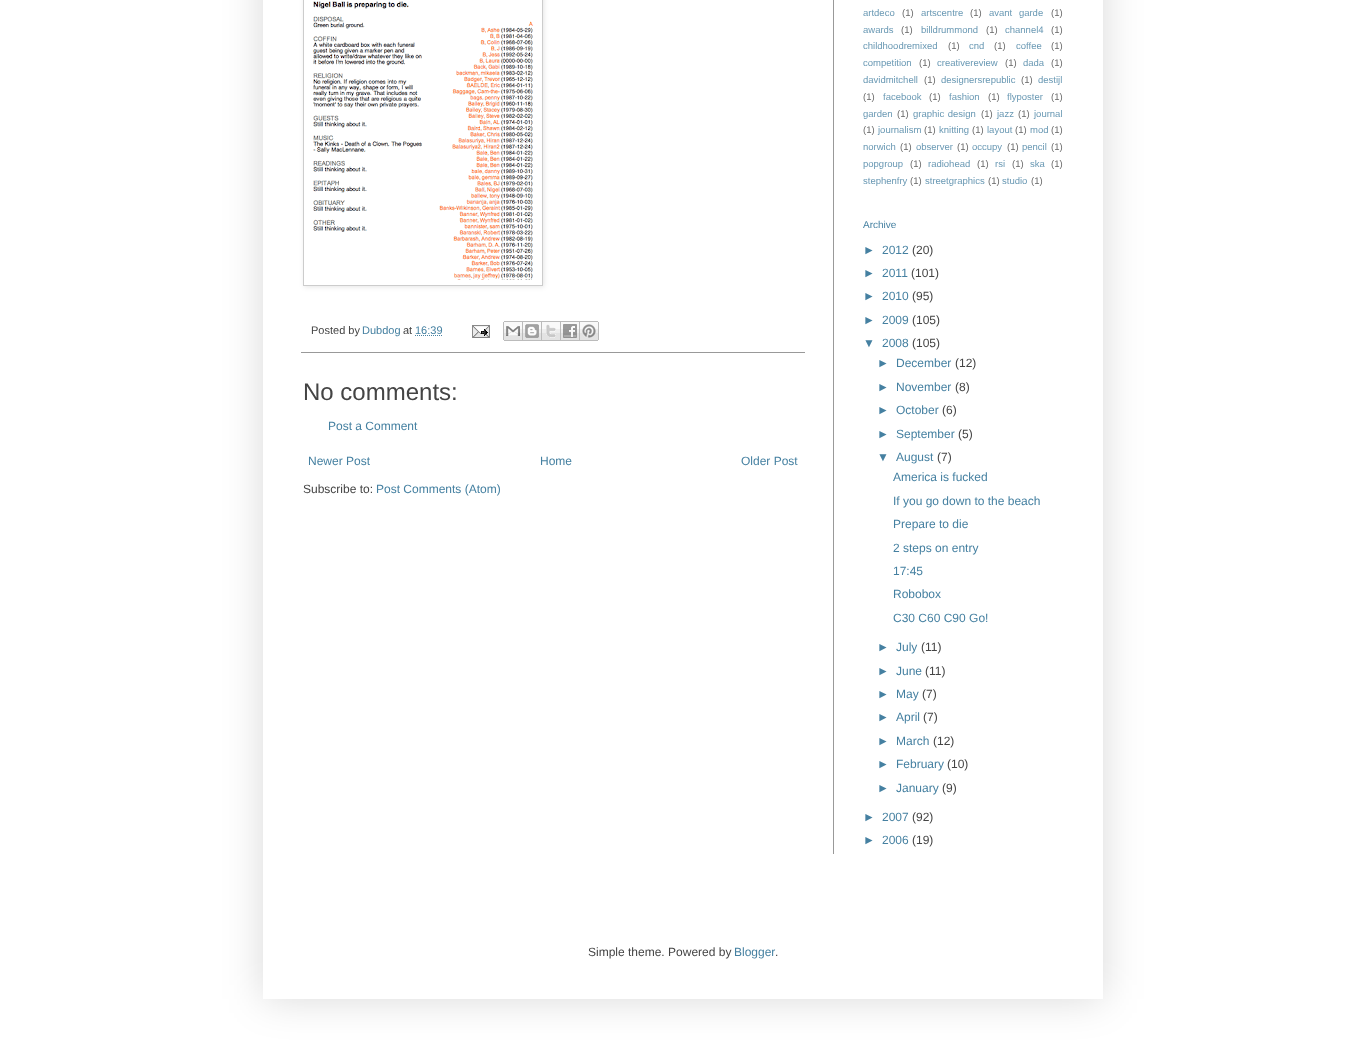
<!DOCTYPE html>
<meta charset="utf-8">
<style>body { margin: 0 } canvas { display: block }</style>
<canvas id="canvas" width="1366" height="1040"></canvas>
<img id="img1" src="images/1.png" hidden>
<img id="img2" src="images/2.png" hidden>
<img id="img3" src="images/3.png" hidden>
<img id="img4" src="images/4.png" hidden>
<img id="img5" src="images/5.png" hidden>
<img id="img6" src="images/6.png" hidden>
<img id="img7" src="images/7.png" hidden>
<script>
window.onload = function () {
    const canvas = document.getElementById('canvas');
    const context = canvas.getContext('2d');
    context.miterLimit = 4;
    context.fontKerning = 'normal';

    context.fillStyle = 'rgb(255, 255, 255)';
    context.fillRect(0, 0, 1366, 1040);
    context.save();
    context.beginPath();
    context.moveTo(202, 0);
    context.lineTo(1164, 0);
    context.lineTo(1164, 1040);
    context.lineTo(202, 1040);
    context.closePath();
    context.moveTo(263, -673);
    context.lineTo(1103, -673);
    context.lineTo(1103, 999);
    context.lineTo(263, 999);
    context.closePath();
    context.clip('evenodd');
    context.fillStyle = 'rgba(0, 0, 0, 0.15)';
    context.filter = 'blur(20px)';
    context.beginPath();
    context.rect(263, -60, 840, 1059);
    context.fill();
    context.filter = 'none';
    context.restore();
    context.fillStyle = 'rgb(153, 153, 153)';
    context.fillRect(833, 0, 1, 854);
    context.save();
    context.beginPath();
    context.moveTo(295, 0);
    context.lineTo(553, 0);
    context.lineTo(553, 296);
    context.lineTo(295, 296);
    context.closePath();
    context.moveTo(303, -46);
    context.lineTo(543, -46);
    context.lineTo(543, 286);
    context.lineTo(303, 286);
    context.closePath();
    context.clip('evenodd');
    context.fillStyle = 'rgba(0, 0, 0, 0.1)';
    context.filter = 'blur(2.5px)';
    context.beginPath();
    context.rect(304, -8, 240, 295);
    context.fill();
    context.filter = 'none';
    context.restore();
    context.strokeStyle = 'rgb(204, 204, 204)';
    context.strokeRect(303.5, -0.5, 239, 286);
    context.drawImage(document.getElementById('img1'), 313, 1, 220, 279);
    context.fillRect(301, 352, 504, 1);
    context.beginPath();
    context.moveTo(415, 335.5);
    context.lineTo(442, 335.5);
    context.strokeStyle = 'rgb(69, 128, 161)';
    context.setLineDash([1, 1]);
    context.stroke();
    context.drawImage(document.getElementById('img2'), 472, 325, 18, 13);
    context.drawImage(document.getElementById('img3'), 503, 321, 20, 20);
    context.drawImage(document.getElementById('img4'), 523, 321, 19, 20);
    context.drawImage(document.getElementById('img5'), 542, 321, 19, 20);
    context.drawImage(document.getElementById('img6'), 561, 321, 19, 20);
    context.drawImage(document.getElementById('img7'), 580, 321, 19, 20);
    context.font = '11px Liberation Sans';
    context.fillStyle = 'rgb(68, 68, 68)';
    context.fillText('Posted by', 311, 334);
    context.fillStyle = 'rgb(69, 128, 161)';
    context.fillText('Dubdog', 362, 334);
    context.fillStyle = 'rgb(68, 68, 68)';
    context.fillText('at', 403, 334);
    context.fillStyle = 'rgb(69, 128, 161)';
    context.fillText('16:39', 415, 334);
    context.font = '24px Liberation Sans';
    context.fillStyle = 'rgb(68, 68, 68)';
    context.fillText('No comments:', 303, 400);
    context.font = '12px Liberation Sans';
    context.fillStyle = 'rgb(69, 128, 161)';
    context.fillText('Post a Comment', 328, 430);
    context.fillText('Newer Post', 308, 465);
    context.fillText('Home', 540, 465);
    context.fillText('Older Post', 741, 465);
    context.fillStyle = 'rgb(68, 68, 68)';
    context.fillText('Subscribe to:', 303, 493);
    context.fillStyle = 'rgb(69, 128, 161)';
    context.fillText('Post Comments (Atom)', 376, 493);
    context.font = '9.5px Liberation Sans';
    context.fillStyle = 'rgb(106, 153, 180)';
    context.fillText('artdeco', 863, 16);
    context.fillStyle = 'rgb(105, 105, 105)';
    context.fillText('(1)', 902, 16);
    context.fillStyle = 'rgb(106, 153, 180)';
    context.fillText('artscentre', 921, 16);
    context.fillStyle = 'rgb(105, 105, 105)';
    context.fillText('(1)', 970, 16);
    context.wordSpacing = '4px';
    context.fillStyle = 'rgb(106, 153, 180)';
    context.fillText('avant garde', 989, 16);
    context.wordSpacing = '0px';
    context.fillStyle = 'rgb(105, 105, 105)';
    context.fillText('(1)', 1051, 16);
    context.fillStyle = 'rgb(106, 153, 180)';
    context.fillText('awards', 863, 33);
    context.fillStyle = 'rgb(105, 105, 105)';
    context.fillText('(1)', 901, 33);
    context.fillStyle = 'rgb(106, 153, 180)';
    context.fillText('billdrummond', 921, 33);
    context.fillStyle = 'rgb(105, 105, 105)';
    context.fillText('(1)', 986, 33);
    context.fillStyle = 'rgb(106, 153, 180)';
    context.fillText('channel4', 1005, 33);
    context.fillStyle = 'rgb(105, 105, 105)';
    context.fillText('(1)', 1051, 33);
    context.fillStyle = 'rgb(106, 153, 180)';
    context.fillText('childhoodremixed', 863, 49);
    context.fillStyle = 'rgb(105, 105, 105)';
    context.fillText('(1)', 948, 49);
    context.fillStyle = 'rgb(106, 153, 180)';
    context.fillText('cnd', 969, 49);
    context.fillStyle = 'rgb(105, 105, 105)';
    context.fillText('(1)', 994, 49);
    context.fillStyle = 'rgb(106, 153, 180)';
    context.fillText('coffee', 1016, 49);
    context.fillStyle = 'rgb(105, 105, 105)';
    context.fillText('(1)', 1051, 49);
    context.fillStyle = 'rgb(106, 153, 180)';
    context.fillText('competition', 863, 66);
    context.fillStyle = 'rgb(105, 105, 105)';
    context.fillText('(1)', 919, 66);
    context.fillStyle = 'rgb(106, 153, 180)';
    context.fillText('creativereview', 937, 66);
    context.fillStyle = 'rgb(105, 105, 105)';
    context.fillText('(1)', 1005, 66);
    context.fillStyle = 'rgb(106, 153, 180)';
    context.fillText('dada', 1023, 66);
    context.fillStyle = 'rgb(105, 105, 105)';
    context.fillText('(1)', 1051, 66);
    context.fillStyle = 'rgb(106, 153, 180)';
    context.fillText('davidmitchell', 863, 83);
    context.fillStyle = 'rgb(105, 105, 105)';
    context.fillText('(1)', 924, 83);
    context.fillStyle = 'rgb(106, 153, 180)';
    context.fillText('designersrepublic', 941, 83);
    context.fillStyle = 'rgb(105, 105, 105)';
    context.fillText('(1)', 1021, 83);
    context.fillStyle = 'rgb(106, 153, 180)';
    context.fillText('destijl', 1038, 83);
    context.fillStyle = 'rgb(105, 105, 105)';
    context.fillText('(1)', 863, 100);
    context.fillStyle = 'rgb(106, 153, 180)';
    context.fillText('facebook', 883, 100);
    context.fillStyle = 'rgb(105, 105, 105)';
    context.fillText('(1)', 929, 100);
    context.fillStyle = 'rgb(106, 153, 180)';
    context.fillText('fashion', 949, 100);
    context.fillStyle = 'rgb(105, 105, 105)';
    context.fillText('(1)', 988, 100);
    context.fillStyle = 'rgb(106, 153, 180)';
    context.fillText('flyposter', 1007, 100);
    context.fillStyle = 'rgb(105, 105, 105)';
    context.fillText('(1)', 1051, 100);
    context.fillStyle = 'rgb(106, 153, 180)';
    context.fillText('garden', 863, 117);
    context.fillStyle = 'rgb(105, 105, 105)';
    context.fillText('(1)', 897, 117);
    context.wordSpacing = '1px';
    context.fillStyle = 'rgb(106, 153, 180)';
    context.fillText('graphic design', 913, 117);
    context.wordSpacing = '0px';
    context.fillStyle = 'rgb(105, 105, 105)';
    context.fillText('(1)', 981, 117);
    context.fillStyle = 'rgb(106, 153, 180)';
    context.fillText('jazz', 997, 117);
    context.fillStyle = 'rgb(105, 105, 105)';
    context.fillText('(1)', 1018, 117);
    context.fillStyle = 'rgb(106, 153, 180)';
    context.fillText('journal', 1034, 117);
    context.fillStyle = 'rgb(105, 105, 105)';
    context.fillText('(1)', 863, 133);
    context.fillStyle = 'rgb(106, 153, 180)';
    context.fillText('journalism', 878, 133);
    context.fillStyle = 'rgb(105, 105, 105)';
    context.fillText('(1)', 924, 133);
    context.fillStyle = 'rgb(106, 153, 180)';
    context.fillText('knitting', 939, 133);
    context.fillStyle = 'rgb(105, 105, 105)';
    context.fillText('(1)', 972, 133);
    context.fillStyle = 'rgb(106, 153, 180)';
    context.fillText('layout', 987, 133);
    context.fillStyle = 'rgb(105, 105, 105)';
    context.fillText('(1)', 1015, 133);
    context.fillStyle = 'rgb(106, 153, 180)';
    context.fillText('mod', 1030, 133);
    context.fillStyle = 'rgb(105, 105, 105)';
    context.fillText('(1)', 1051, 133);
    context.fillStyle = 'rgb(106, 153, 180)';
    context.fillText('norwich', 863, 150);
    context.fillStyle = 'rgb(105, 105, 105)';
    context.fillText('(1)', 900, 150);
    context.fillStyle = 'rgb(106, 153, 180)';
    context.fillText('observer', 916, 150);
    context.fillStyle = 'rgb(105, 105, 105)';
    context.fillText('(1)', 957, 150);
    context.fillStyle = 'rgb(106, 153, 180)';
    context.fillText('occupy', 972, 150);
    context.fillStyle = 'rgb(105, 105, 105)';
    context.fillText('(1)', 1007, 150);
    context.fillStyle = 'rgb(106, 153, 180)';
    context.fillText('pencil', 1022, 150);
    context.fillStyle = 'rgb(105, 105, 105)';
    context.fillText('(1)', 1051, 150);
    context.fillStyle = 'rgb(106, 153, 180)';
    context.fillText('popgroup', 863, 167);
    context.fillStyle = 'rgb(105, 105, 105)';
    context.fillText('(1)', 910, 167);
    context.fillStyle = 'rgb(106, 153, 180)';
    context.fillText('radiohead', 928, 167);
    context.fillStyle = 'rgb(105, 105, 105)';
    context.fillText('(1)', 977, 167);
    context.fillStyle = 'rgb(106, 153, 180)';
    context.fillText('rsi', 995, 167);
    context.fillStyle = 'rgb(105, 105, 105)';
    context.fillText('(1)', 1012, 167);
    context.fillStyle = 'rgb(106, 153, 180)';
    context.fillText('ska', 1030, 167);
    context.fillStyle = 'rgb(105, 105, 105)';
    context.fillText('(1)', 1051, 167);
    context.fillStyle = 'rgb(106, 153, 180)';
    context.fillText('stephenfry', 863, 184);
    context.fillStyle = 'rgb(105, 105, 105)';
    context.fillText('(1)', 910, 184);
    context.fillStyle = 'rgb(106, 153, 180)';
    context.fillText('streetgraphics', 925, 184);
    context.fillStyle = 'rgb(105, 105, 105)';
    context.fillText('(1)', 988, 184);
    context.fillStyle = 'rgb(106, 153, 180)';
    context.fillText('studio', 1002, 184);
    context.fillStyle = 'rgb(105, 105, 105)';
    context.fillText('(1)', 1031, 184);
    context.font = '10px Liberation Sans';
    context.fillStyle = 'rgb(69, 128, 161)';
    context.fillText('Archive', 863, 228);
    context.font = '12px Liberation Sans';
    context.fillText('►', 863, 254);
    context.fillText('2012', 882, 254);
    context.fillStyle = 'rgb(68, 68, 68)';
    context.fillText('(20)', 912, 254);
    context.fillStyle = 'rgb(69, 128, 161)';
    context.fillText('►', 863, 277);
    context.fillText('2011', 882, 277);
    context.fillStyle = 'rgb(68, 68, 68)';
    context.fillText('(101)', 911, 277);
    context.fillStyle = 'rgb(69, 128, 161)';
    context.fillText('►', 863, 300);
    context.fillText('2010', 882, 300);
    context.fillStyle = 'rgb(68, 68, 68)';
    context.fillText('(95)', 912, 300);
    context.fillStyle = 'rgb(69, 128, 161)';
    context.fillText('►', 863, 324);
    context.fillText('2009', 882, 324);
    context.fillStyle = 'rgb(68, 68, 68)';
    context.fillText('(105)', 912, 324);
    context.fillStyle = 'rgb(69, 128, 161)';
    context.fillText('▼', 863, 347);
    context.fillText('2008', 882, 347);
    context.fillStyle = 'rgb(68, 68, 68)';
    context.fillText('(105)', 912, 347);
    context.fillStyle = 'rgb(69, 128, 161)';
    context.fillText('►', 877, 367);
    context.fillText('December', 896, 367);
    context.fillStyle = 'rgb(68, 68, 68)';
    context.fillText('(12)', 955, 367);
    context.fillStyle = 'rgb(69, 128, 161)';
    context.fillText('►', 877, 391);
    context.fillText('November', 896, 391);
    context.fillStyle = 'rgb(68, 68, 68)';
    context.fillText('(8)', 955, 391);
    context.fillStyle = 'rgb(69, 128, 161)';
    context.fillText('►', 877, 414);
    context.fillText('October', 896, 414);
    context.fillStyle = 'rgb(68, 68, 68)';
    context.fillText('(6)', 942, 414);
    context.fillStyle = 'rgb(69, 128, 161)';
    context.fillText('►', 877, 438);
    context.fillText('September', 896, 438);
    context.fillStyle = 'rgb(68, 68, 68)';
    context.fillText('(5)', 958, 438);
    context.fillStyle = 'rgb(69, 128, 161)';
    context.fillText('▼', 877, 461);
    context.fillText('August', 896, 461);
    context.fillStyle = 'rgb(68, 68, 68)';
    context.fillText('(7)', 937, 461);
    context.fillStyle = 'rgb(69, 128, 161)';
    context.fillText('America is fucked', 893, 481);
    context.fillText('If you go down to the beach', 893, 505);
    context.fillText('Prepare to die', 893, 528);
    context.fillText('2 steps on entry', 893, 552);
    context.fillText('17:45', 893, 575);
    context.fillText('Robobox', 893, 598);
    context.fillText('C30 C60 C90 Go!', 893, 622);
    context.fillText('►', 877, 651);
    context.fillText('July', 896, 651);
    context.fillStyle = 'rgb(68, 68, 68)';
    context.fillText('(11)', 921, 651);
    context.fillStyle = 'rgb(69, 128, 161)';
    context.fillText('►', 877, 675);
    context.fillText('June', 896, 675);
    context.fillStyle = 'rgb(68, 68, 68)';
    context.fillText('(11)', 925, 675);
    context.fillStyle = 'rgb(69, 128, 161)';
    context.fillText('►', 877, 698);
    context.fillText('May', 896, 698);
    context.fillStyle = 'rgb(68, 68, 68)';
    context.fillText('(7)', 922, 698);
    context.fillStyle = 'rgb(69, 128, 161)';
    context.fillText('►', 877, 721);
    context.fillText('April', 896, 721);
    context.fillStyle = 'rgb(68, 68, 68)';
    context.fillText('(7)', 923, 721);
    context.fillStyle = 'rgb(69, 128, 161)';
    context.fillText('►', 877, 745);
    context.fillText('March', 896, 745);
    context.fillStyle = 'rgb(68, 68, 68)';
    context.fillText('(12)', 933, 745);
    context.fillStyle = 'rgb(69, 128, 161)';
    context.fillText('►', 877, 768);
    context.fillText('February', 896, 768);
    context.fillStyle = 'rgb(68, 68, 68)';
    context.fillText('(10)', 947, 768);
    context.fillStyle = 'rgb(69, 128, 161)';
    context.fillText('►', 877, 792);
    context.fillText('January', 896, 792);
    context.fillStyle = 'rgb(68, 68, 68)';
    context.fillText('(9)', 942, 792);
    context.fillStyle = 'rgb(69, 128, 161)';
    context.fillText('►', 863, 821);
    context.fillText('2007', 882, 821);
    context.fillStyle = 'rgb(68, 68, 68)';
    context.fillText('(92)', 912, 821);
    context.fillStyle = 'rgb(69, 128, 161)';
    context.fillText('►', 863, 844);
    context.fillText('2006', 882, 844);
    context.fillStyle = 'rgb(68, 68, 68)';
    context.fillText('(19)', 912, 844);
    context.fillText('Simple theme. Powered by', 588, 956);
    context.fillStyle = 'rgb(69, 128, 161)';
    context.fillText('Blogger', 734, 956);
    context.fillStyle = 'rgb(68, 68, 68)';
    context.fillText('.', 775, 956);
};
</script>
